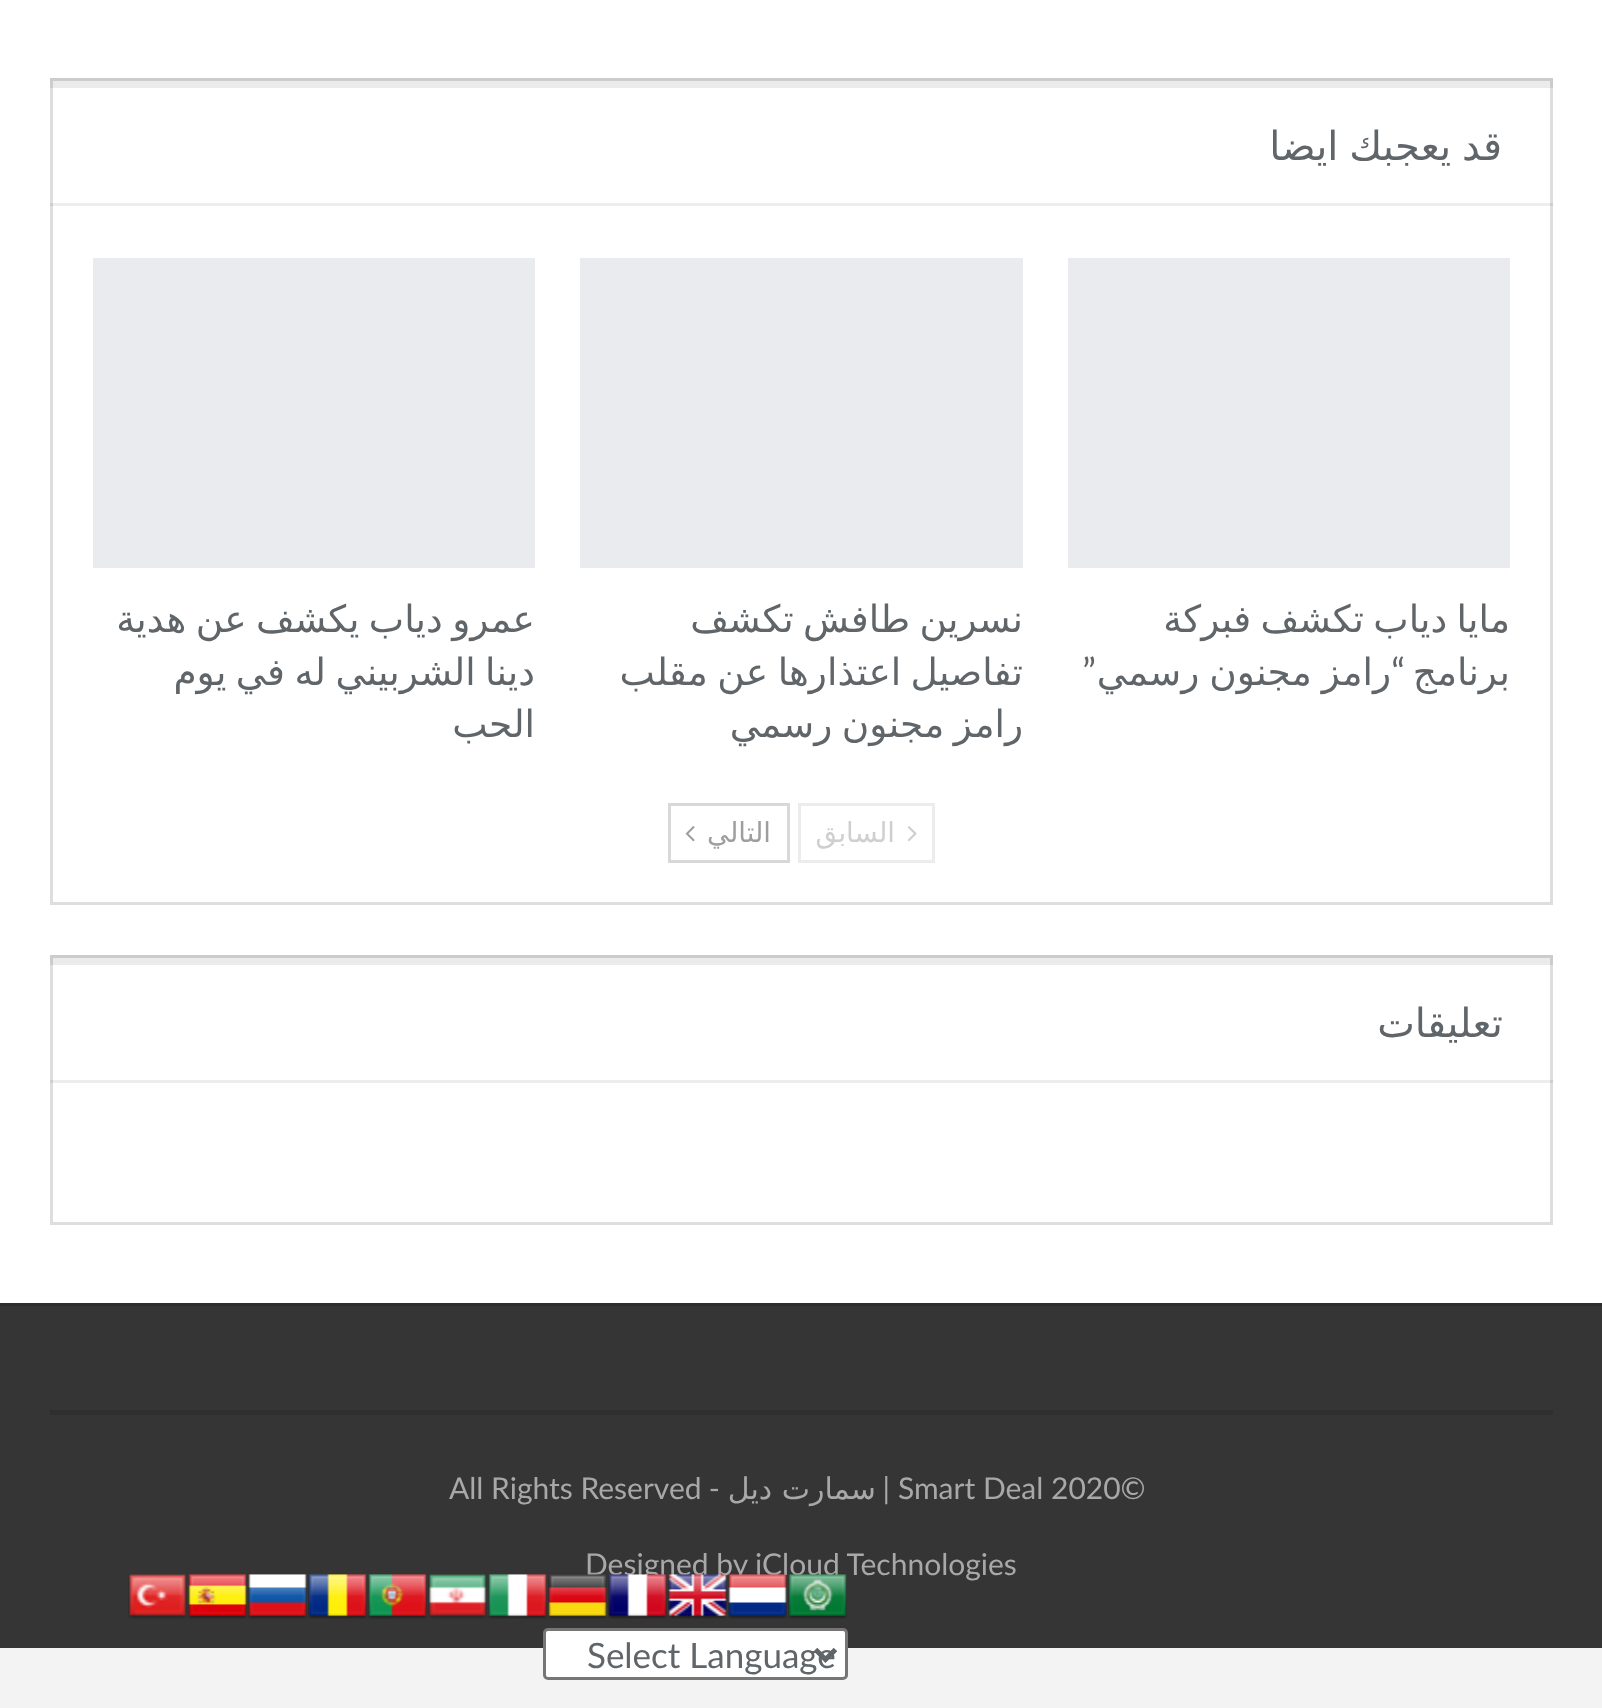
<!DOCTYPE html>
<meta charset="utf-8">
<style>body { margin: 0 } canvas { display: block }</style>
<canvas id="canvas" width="1602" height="1708"></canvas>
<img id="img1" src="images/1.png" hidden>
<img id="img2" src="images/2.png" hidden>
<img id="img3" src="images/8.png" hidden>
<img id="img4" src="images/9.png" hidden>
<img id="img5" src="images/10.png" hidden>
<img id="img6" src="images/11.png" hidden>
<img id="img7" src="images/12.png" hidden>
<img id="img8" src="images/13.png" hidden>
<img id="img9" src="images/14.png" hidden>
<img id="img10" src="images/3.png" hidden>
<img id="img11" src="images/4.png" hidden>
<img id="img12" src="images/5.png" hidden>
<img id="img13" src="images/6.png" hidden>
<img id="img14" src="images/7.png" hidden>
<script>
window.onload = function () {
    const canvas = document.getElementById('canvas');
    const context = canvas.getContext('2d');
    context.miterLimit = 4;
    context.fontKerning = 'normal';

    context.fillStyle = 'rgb(243, 243, 243)';
    context.fillRect(0, 0, 1602, 1708);
    context.fillStyle = 'rgb(255, 255, 255)';
    context.fillRect(0, 0, 1602, 1303);
    context.strokeStyle = 'rgb(222, 222, 222)';
    context.lineWidth = 3;
    context.strokeRect(51.5, 79.5, 1500, 824);
    context.fillStyle = 'rgba(0, 0, 0, 0.08)';
    context.fillRect(50, 78, 1503, 10);
    context.fillStyle = 'rgba(0, 0, 0, 0.07)';
    context.fillRect(50, 203, 1503, 3);
    context.fillStyle = 'rgb(233, 235, 238)';
    context.fillRect(1068, 258, 442, 310);
    context.fillRect(580, 258, 443, 310);
    context.fillRect(93, 258, 442, 310);
    context.strokeStyle = 'rgb(236, 236, 236)';
    context.strokeRect(799.5, 804.5, 134, 57);
    context.drawImage(document.getElementById('img1'), 907, 826, 10, 16);
    context.strokeStyle = 'rgb(216, 216, 216)';
    context.strokeRect(669.5, 804.5, 119, 57);
    context.drawImage(document.getElementById('img2'), 685, 826, 10, 16);
    context.strokeStyle = 'rgb(222, 222, 222)';
    context.strokeRect(51.5, 956.5, 1500, 267);
    context.fillStyle = 'rgba(0, 0, 0, 0.08)';
    context.fillRect(50, 955, 1503, 10);
    context.fillStyle = 'rgba(0, 0, 0, 0.07)';
    context.fillRect(50, 1080, 1503, 3);
    context.fillStyle = 'rgb(53, 53, 53)';
    context.fillRect(0, 1306, 1602, 342);
    context.fillStyle = 'rgb(45, 45, 45)';
    context.fillRect(0, 1303, 1602, 3);
    context.fillStyle = 'rgb(47, 47, 47)';
    context.fillRect(50, 1410, 1503, 5);
    context.drawImage(document.getElementById('img3'), 488, 1574, 59, 45);
    context.drawImage(document.getElementById('img4'), 428, 1574, 59, 45);
    context.drawImage(document.getElementById('img5'), 368, 1574, 59, 45);
    context.drawImage(document.getElementById('img6'), 308, 1574, 59, 45);
    context.drawImage(document.getElementById('img7'), 248, 1574, 59, 45);
    context.drawImage(document.getElementById('img8'), 188, 1574, 59, 45);
    context.drawImage(document.getElementById('img9'), 128, 1574, 59, 45);
    context.fillStyle = 'rgb(255, 255, 255)';
    context.beginPath();
    context.roundRect(544.5, 1629.5, 302, 49, 3.5);
    context.fill();
    context.strokeStyle = 'rgb(118, 118, 118)';
    context.stroke();
    context.beginPath();
    context.moveTo(815.5, 1649.5);
    context.lineTo(825.5, 1659.5);
    context.lineTo(835.5, 1649.5);
    context.strokeStyle = 'rgb(95, 101, 105)';
    context.lineWidth = 5;
    context.stroke();
    context.wordSpacing = '-2px';
    context.direction = 'rtl';
    context.font = '40px DejaVu Sans';
    context.fillStyle = 'rgb(95, 101, 105)';
    context.fillText('قد يعجبك ايضا', 1502, 160);
    context.wordSpacing = '-2.5px';
    context.font = '37.5px DejaVu Sans';
    context.fillText('مايا دياب تكشف فبركة', 1510, 632);
    context.wordSpacing = '0px';
    context.fillText('برنامج', 1510, 685);
    context.font = '37.5px Lato';
    context.fillText('“', 1405, 685);
    context.wordSpacing = '-2px';
    context.font = '37.5px DejaVu Sans';
    context.fillText('رامز مجنون رسمي', 1391, 685);
    context.wordSpacing = '0px';
    context.font = '37.5px Lato';
    context.fillText('”', 1096, 685);
    context.wordSpacing = '-2.5px';
    context.font = '37.5px DejaVu Sans';
    context.fillText('نسرين طافش تكشف', 1023, 632);
    context.fillText('تفاصيل اعتذارها عن مقلب', 1023, 685);
    context.fillText('رامز مجنون رسمي', 1023, 737);
    context.fillText('عمرو دياب يكشف عن هدية', 535, 632);
    context.fillText('دينا الشربيني له في يوم', 535, 685);
    context.wordSpacing = '0px';
    context.fillText('الحب', 535, 737);
    context.font = '27.5px DejaVu Sans';
    context.fillStyle = 'rgb(207, 207, 207)';
    context.fillText('السابق', 895, 842);
    context.fillStyle = 'rgb(158, 158, 158)';
    context.fillText('التالي', 771, 842);
    context.font = '40px DejaVu Sans';
    context.fillStyle = 'rgb(95, 101, 105)';
    context.fillText('تعليقات', 1503, 1037);
    context.direction = 'ltr';
    context.font = '30px Lato';
    context.fillStyle = 'rgb(168, 168, 168)';
    context.fillText('Smart Deal 2020©', 898, 1499);
    context.direction = 'rtl';
    context.fillText('|', 890, 1499);
    context.font = '30px DejaVu Sans';
    context.fillText('سمارت ديل', 876, 1499);
    context.font = '30px Lato';
    context.fillText('-', 720, 1499);
    context.direction = 'ltr';
    context.fillText('All Rights Reserved', 449, 1499);
    context.fillText('Designed by iCloud Technologies', 585, 1575);
    context.drawImage(document.getElementById('img10'), 788, 1573, 59, 46);
    context.drawImage(document.getElementById('img11'), 728, 1573, 59, 46);
    context.drawImage(document.getElementById('img12'), 668, 1573, 59, 46);
    context.drawImage(document.getElementById('img13'), 608, 1573, 59, 46);
    context.drawImage(document.getElementById('img14'), 548, 1573, 59, 46);
    context.font = '35px Lato';
    context.fillStyle = 'rgb(95, 101, 105)';
    context.fillText('Select Language', 587, 1668);
};
</script>
